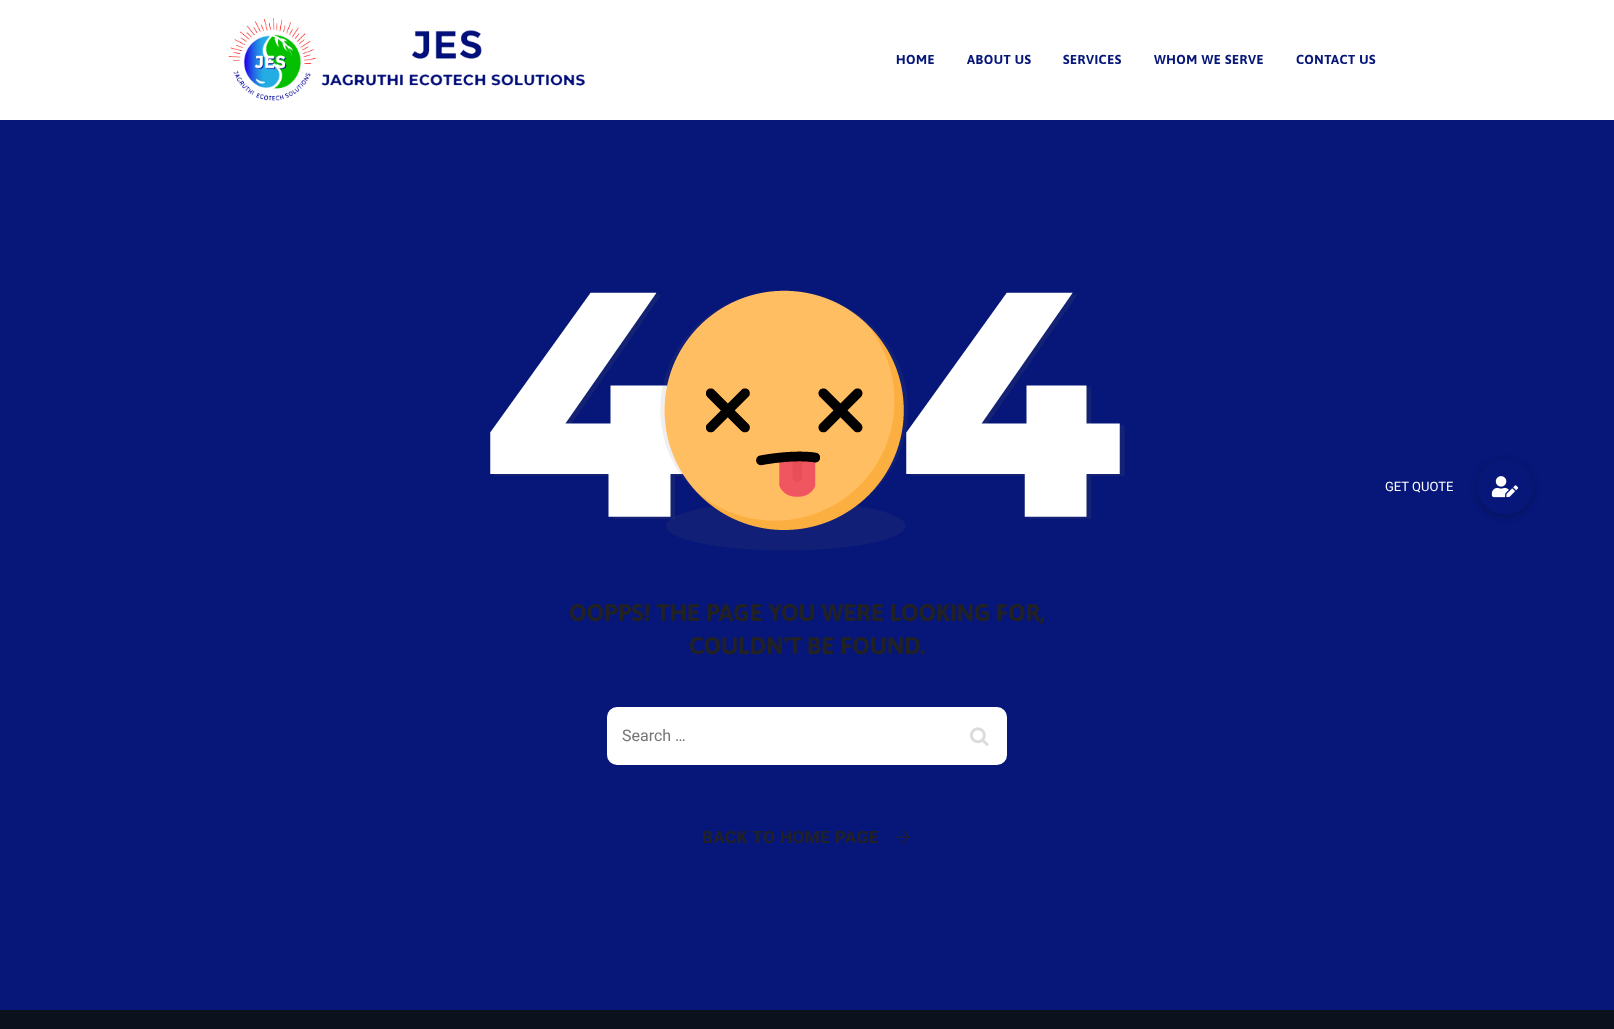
<!DOCTYPE html>
<meta charset="utf-8">
<style>body { margin: 0 } canvas { display: block }</style>
<canvas id="canvas" width="1614" height="1029"></canvas>
<img id="img1" src="images/1.png" hidden>
<img id="img2" src="images/2.png" hidden>
<img id="img3" src="images/3.png" hidden>
<img id="img4" src="images/4.png" hidden>
<img id="img5" src="images/5.png" hidden>
<script>
window.onload = function () {
    const canvas = document.getElementById('canvas');
    const context = canvas.getContext('2d');
    context.miterLimit = 4;
    context.fontKerning = 'normal';

    context.fillStyle = 'rgb(255, 255, 255)';
    context.fillRect(0, 0, 1614, 1029);
    context.drawImage(document.getElementById('img1'), 228, 18, 357, 83);
    context.fillStyle = 'rgb(7, 23, 121)';
    context.fillRect(0, 120, 1614, 890);
    context.drawImage(document.getElementById('img2'), 490, 290, 635, 261);
    context.fillStyle = 'rgb(255, 255, 255)';
    context.beginPath();
    context.roundRect(607, 707, 400, 58, 10);
    context.fill();
    context.drawImage(document.getElementById('img3'), 970, 727, 19, 19);
    context.drawImage(document.getElementById('img4'), 895, 829, 15, 16);
    context.fillStyle = 'rgb(12, 18, 29)';
    context.fillRect(0, 1010, 1614, 19);
    context.fillStyle = 'rgba(0, 0, 0, 0.2)';
    context.filter = 'blur(3px)';
    context.beginPath();
    context.roundRect(1476, 460, 58, 58, 29);
    context.fill();
    context.filter = 'none';
    context.fillStyle = 'rgb(7, 23, 121)';
    context.beginPath();
    context.arc(1505, 487, 28, 0, 2 * Math.PI);
    context.fill();
    context.drawImage(document.getElementById('img5'), 1491, 476, 28, 22);
    context.letterSpacing = '0.5px';
    context.font = 'bold 13px Asap';
    context.fillText('HOME', 896, 64);
    context.fillText('ABOUT US', 967, 64);
    context.fillText('SERVICES', 1063, 64);
    context.fillText('WHOM WE SERVE', 1154, 64);
    context.fillText('CONTACT US', 1296, 64);
    context.letterSpacing = '0px';
    context.font = 'bold 24px Asap';
    context.fillStyle = 'rgb(34, 34, 34)';
    context.fillText('OOPPS! THE PAGE YOU WERE LOOKING FOR,', 569, 621);
    context.fillText('COULDN\'T BE FOUND.', 689, 654);
    context.font = '16px Roboto';
    context.fillStyle = 'rgb(117, 117, 117)';
    context.fillText('Search …', 622, 741);
    context.letterSpacing = '0.5px';
    context.font = 'bold 17px Roboto';
    context.fillStyle = 'rgb(34, 34, 34)';
    context.fillText('BACK TO HOME PAGE', 702, 843);
    context.letterSpacing = '0px';
    context.font = '13px Roboto';
    context.fillStyle = 'rgb(255, 255, 255)';
    context.fillText('GET QUOTE', 1385, 491);
};
</script>
